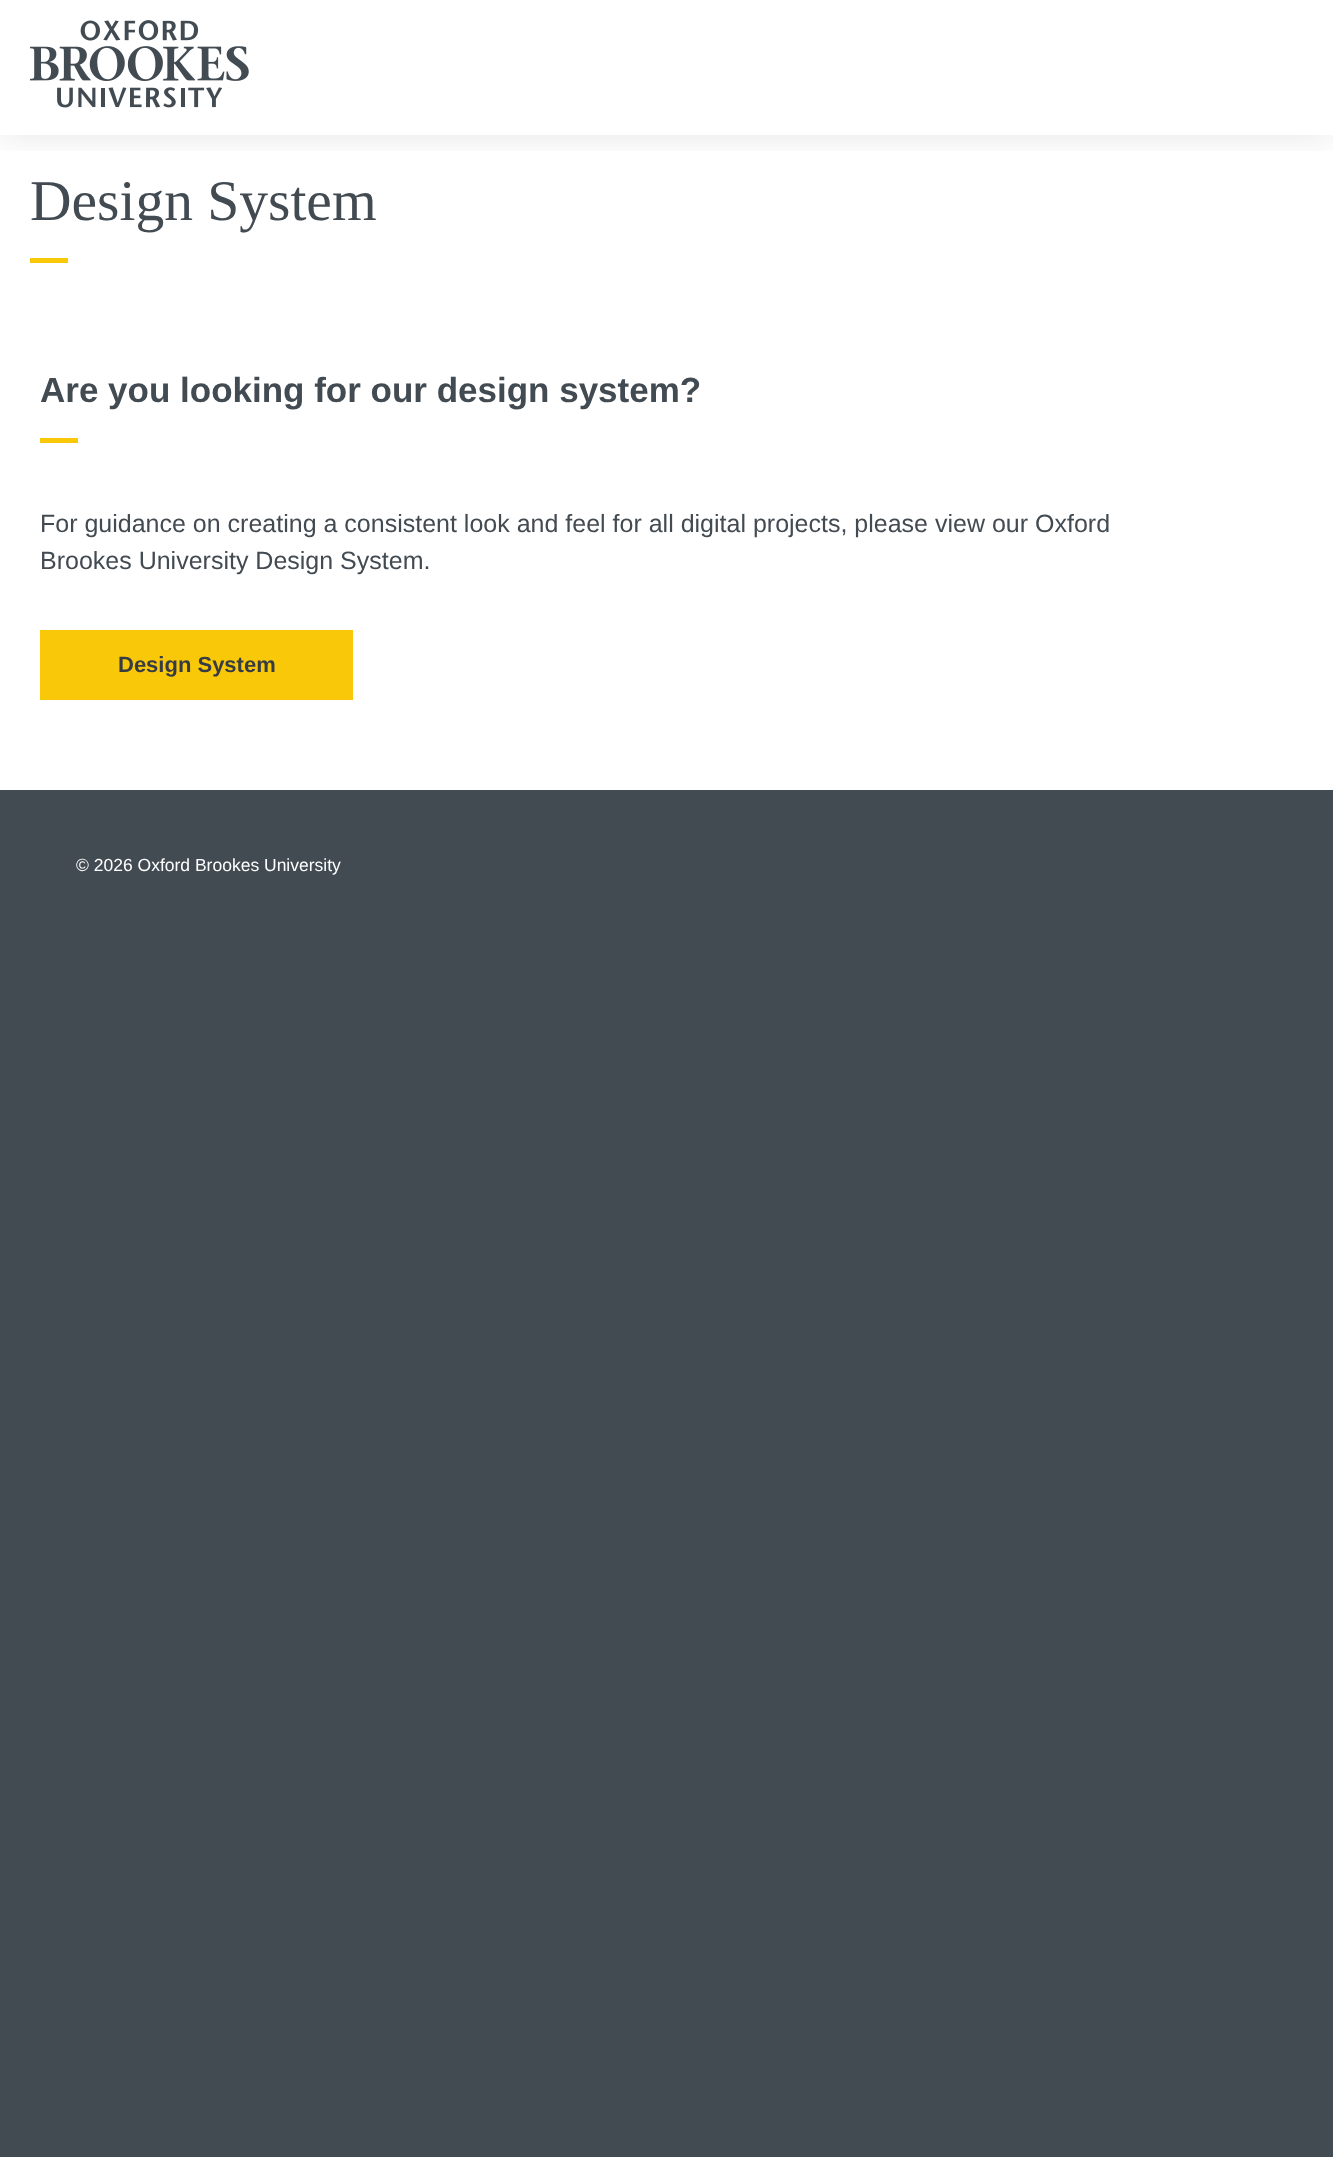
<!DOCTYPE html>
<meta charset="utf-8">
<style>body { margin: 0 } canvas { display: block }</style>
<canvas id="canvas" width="1333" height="2157"></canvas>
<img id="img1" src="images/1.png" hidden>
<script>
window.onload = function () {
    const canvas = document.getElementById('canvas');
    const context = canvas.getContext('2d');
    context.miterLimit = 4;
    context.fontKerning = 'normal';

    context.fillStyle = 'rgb(66, 74, 82)';
    context.fillRect(0, 0, 1333, 2157);
    context.fillStyle = 'rgb(255, 255, 255)';
    context.fillRect(0, 0, 1333, 790);
    context.save();
    context.beginPath();
    context.rect(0, 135, 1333, 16);
    context.clip();
    context.fillStyle = 'rgba(0, 0, 0, 0.1)';
    context.filter = 'blur(19px)';
    context.beginPath();
    context.rect(0, 0, 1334, 135);
    context.fill();
    context.filter = 'none';
    context.restore();
    context.drawImage(document.getElementById('img1'), 30, 20, 219, 88);
    context.fillStyle = 'rgb(249, 201, 9)';
    context.fillRect(30, 258, 38, 5);
    context.fillRect(40, 438, 38, 5);
    context.fillRect(40, 630, 313, 70);
    context.font = '57.5px Liberation Serif';
    context.fillStyle = 'rgb(66, 74, 82)';
    context.fillText('Design System', 30, 220);
    context.font = 'bold 35px Liberation Sans';
    context.fillText('Are you looking for our design system?', 40, 402);
    context.font = '25px Liberation Sans';
    context.fillText('For guidance on creating a consistent look and feel for all digital projects, please view our Oxford', 40, 532);
    context.fillText('Brookes University Design System.', 40, 569);
    context.font = 'bold 22px Liberation Sans';
    context.fillStyle = 'rgb(55, 59, 67)';
    context.fillText('Design System', 118, 672);
    context.font = '17.5px Liberation Sans';
    context.fillStyle = 'rgb(255, 255, 255)';
    context.fillText('© 2026 Oxford Brookes University', 76, 871);
};
</script>
